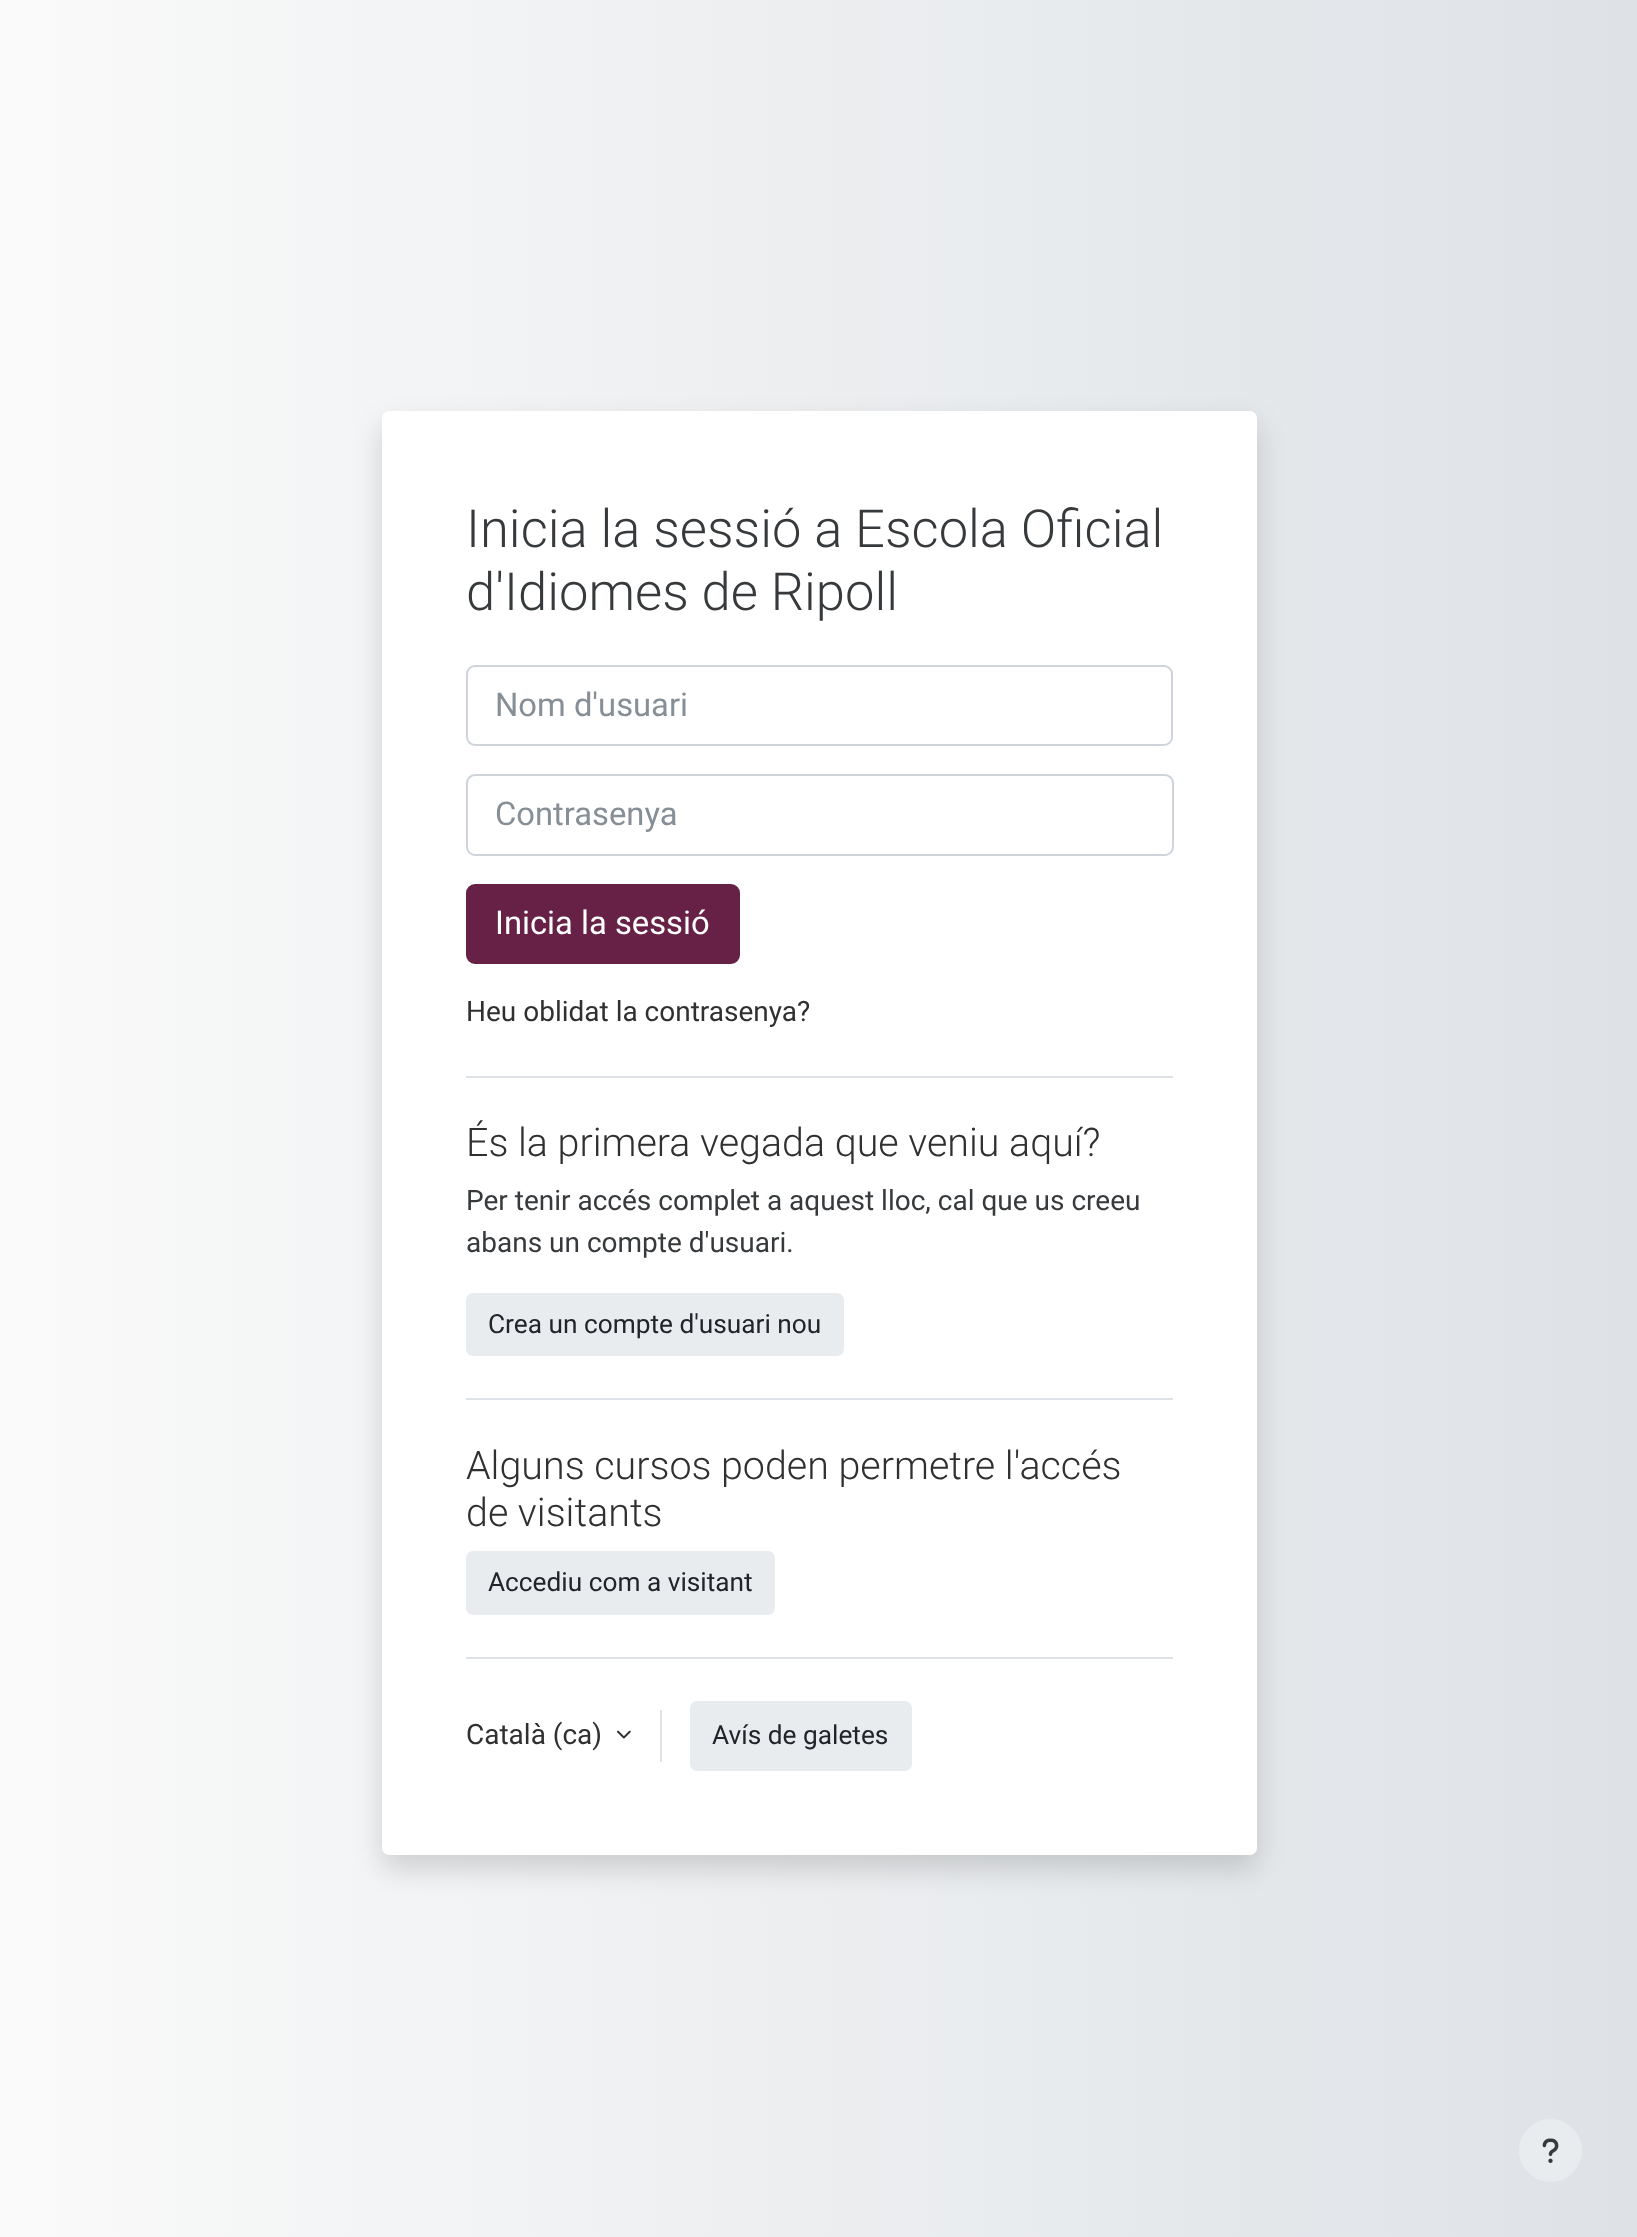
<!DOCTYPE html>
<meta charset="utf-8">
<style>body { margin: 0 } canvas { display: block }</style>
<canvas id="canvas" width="1637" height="2237"></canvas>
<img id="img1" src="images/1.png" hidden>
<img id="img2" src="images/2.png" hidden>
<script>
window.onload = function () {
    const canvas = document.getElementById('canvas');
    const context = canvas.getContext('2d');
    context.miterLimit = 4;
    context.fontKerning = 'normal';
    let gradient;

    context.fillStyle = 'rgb(255, 255, 255)';
    context.fillRect(0, 0, 1637, 2237);
    gradient = context.createLinearGradient(0, 1119, 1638, 1119);
    gradient.addColorStop(0, 'rgb(250, 250, 250)');
    gradient.addColorStop(1, 'rgb(222, 226, 230)');
    context.fillStyle = gradient;
    context.fillRect(0, 0, 1637, 2237);
    context.fillStyle = 'rgba(0, 0, 0, 0.15)';
    context.filter = 'blur(14px)';
    context.beginPath();
    context.roundRect(382, 425, 875, 1444, 7);
    context.fill();
    context.filter = 'none';
    context.fillStyle = 'rgb(255, 255, 255)';
    context.beginPath();
    context.roundRect(382, 411, 875, 1444, 7);
    context.fill();
    context.beginPath();
    context.roundRect(467, 666, 705, 79, 8);
    context.strokeStyle = 'rgb(206, 212, 218)';
    context.lineWidth = 2;
    context.stroke();
    context.beginPath();
    context.roundRect(467, 775, 706, 80, 8);
    context.stroke();
    context.fillStyle = 'rgb(103, 33, 70)';
    context.beginPath();
    context.roundRect(467, 885, 272, 78, 8);
    context.fill();
    context.strokeStyle = 'rgb(103, 33, 70)';
    context.stroke();
    context.fillStyle = 'rgb(222, 226, 230)';
    context.fillRect(466, 1076, 707, 2);
    context.fillStyle = 'rgb(233, 236, 239)';
    context.beginPath();
    context.roundRect(467, 1294, 376, 61, 6);
    context.fill();
    context.strokeStyle = 'rgb(233, 236, 239)';
    context.stroke();
    context.fillStyle = 'rgb(222, 226, 230)';
    context.fillRect(466, 1398, 707, 2);
    context.fillStyle = 'rgb(233, 236, 239)';
    context.beginPath();
    context.roundRect(467, 1552, 307, 62, 6);
    context.fill();
    context.stroke();
    context.fillStyle = 'rgb(222, 226, 230)';
    context.fillRect(466, 1657, 707, 2);
    context.drawImage(document.getElementById('img1'), 617, 1730, 14, 9);
    context.fillRect(660, 1710, 2, 52);
    context.fillStyle = 'rgb(233, 236, 239)';
    context.beginPath();
    context.roundRect(691, 1702, 220, 68, 6);
    context.fill();
    context.stroke();
    context.beginPath();
    context.arc(1550.5, 2150.5, 31.5, 0, 2 * Math.PI);
    context.fill();
    context.drawImage(document.getElementById('img2'), 1542, 2138, 17, 25);
    context.font = '300 52.5px Roboto';
    context.fillStyle = 'rgb(55, 58, 60)';
    context.fillText('Inicia la sessió a Escola Oficial', 466, 547);
    context.fillText('d\'Idiomes de Ripoll', 466, 610);
    context.font = '32.75px Roboto';
    context.fillStyle = 'rgb(134, 142, 150)';
    context.fillText('Nom d\'usuari', 495, 716);
    context.fillText('Contrasenya', 495, 825);
    context.fillStyle = 'rgb(255, 255, 255)';
    context.fillText('Inicia la sessió', 495, 934);
    context.font = '28px Roboto';
    context.fillStyle = 'rgb(48, 48, 48)';
    context.fillText('Heu oblidat la contrasenya?', 466, 1021);
    context.font = '300 39.4px Roboto';
    context.fillText('És la primera vegada que veniu aquí?', 466, 1156);
    context.font = '28px Roboto';
    context.fillStyle = 'rgb(55, 58, 60)';
    context.fillText('Per tenir accés complet a aquest lloc, cal que us creeu', 466, 1210);
    context.fillText('abans un compte d\'usuari.', 466, 1252);
    context.font = '26.25px Roboto';
    context.fillStyle = 'rgb(33, 37, 41)';
    context.fillText('Crea un compte d\'usuari nou', 488, 1333);
    context.font = '300 39.4px Roboto';
    context.fillStyle = 'rgb(48, 48, 48)';
    context.fillText('Alguns cursos poden permetre l\'accés', 466, 1479);
    context.fillText('de visitants', 466, 1526);
    context.font = '26.25px Roboto';
    context.fillStyle = 'rgb(33, 37, 41)';
    context.fillText('Accediu com a visitant', 488, 1591);
    context.font = '28px Roboto';
    context.fillStyle = 'rgb(48, 48, 48)';
    context.fillText('Català (ca)', 466, 1744);
    context.font = '26.25px Roboto';
    context.fillStyle = 'rgb(33, 37, 41)';
    context.fillText('Avís de galetes', 712, 1744);
};
</script>
